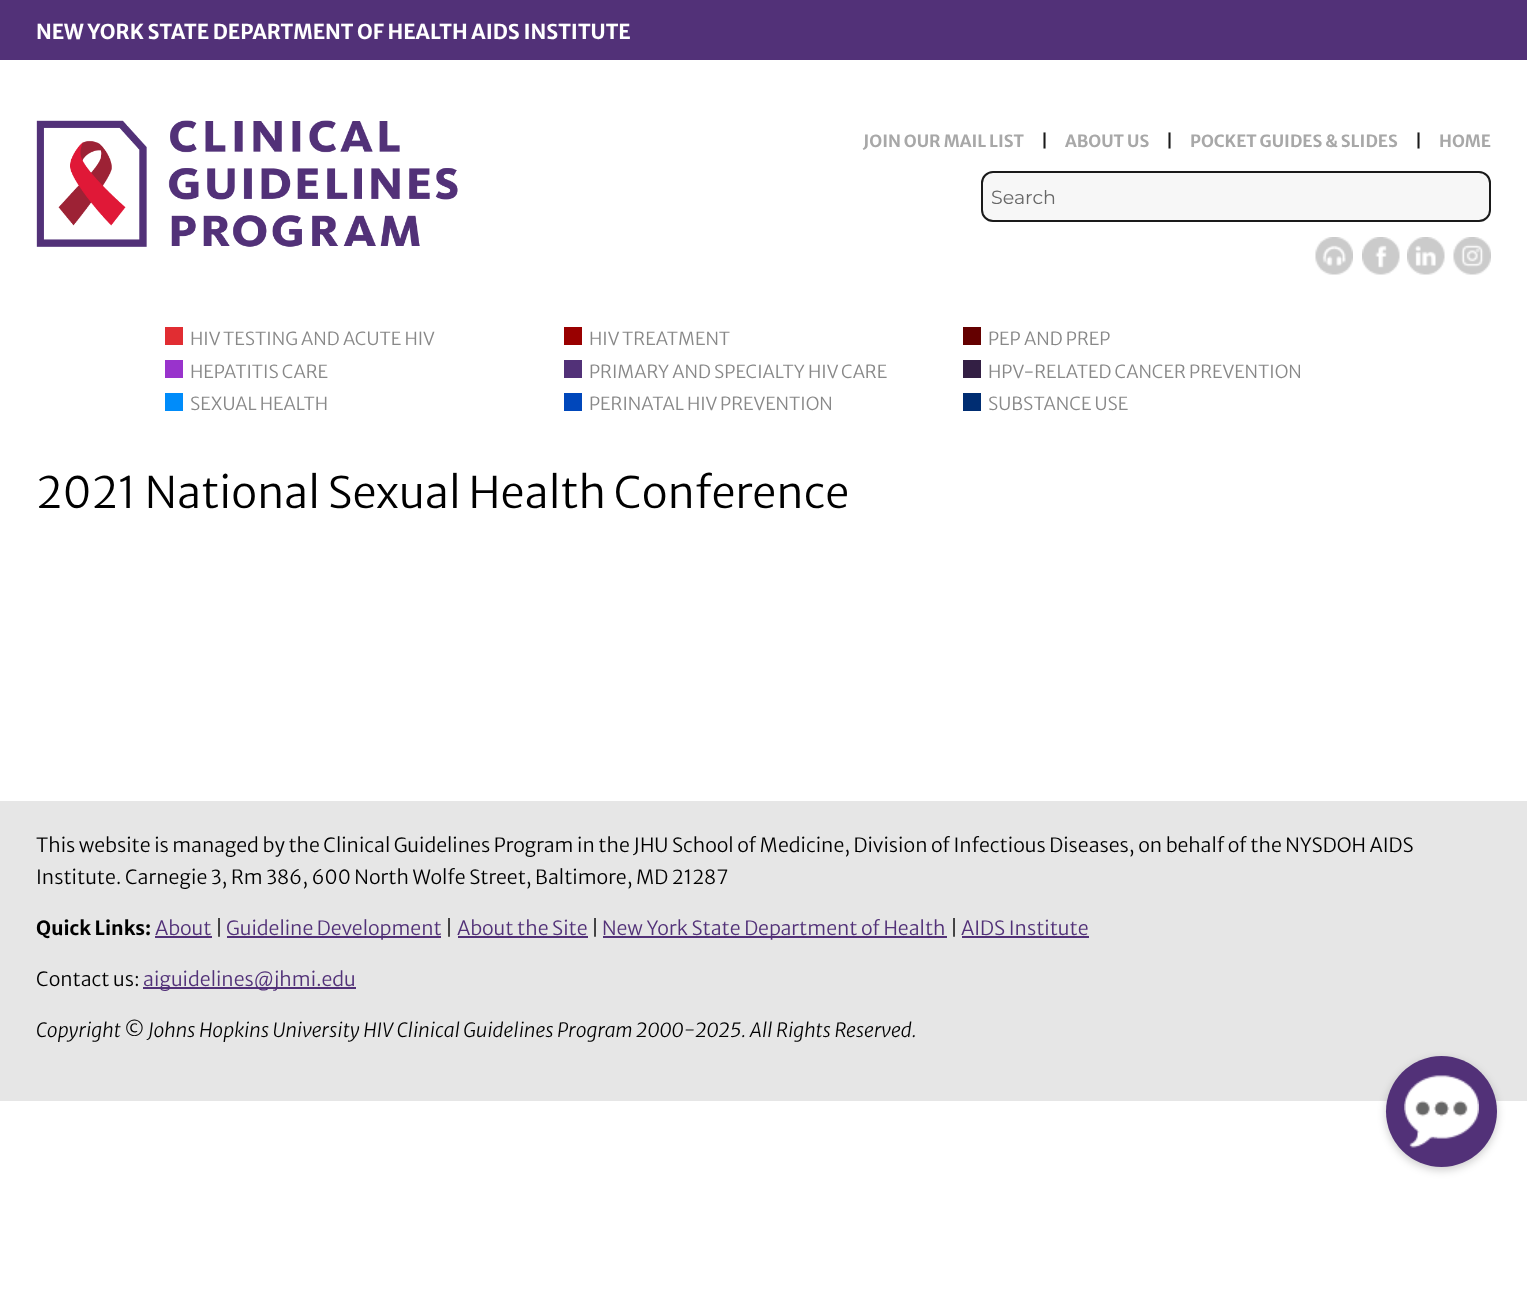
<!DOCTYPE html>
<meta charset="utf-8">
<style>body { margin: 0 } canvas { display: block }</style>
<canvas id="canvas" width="1527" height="1296"></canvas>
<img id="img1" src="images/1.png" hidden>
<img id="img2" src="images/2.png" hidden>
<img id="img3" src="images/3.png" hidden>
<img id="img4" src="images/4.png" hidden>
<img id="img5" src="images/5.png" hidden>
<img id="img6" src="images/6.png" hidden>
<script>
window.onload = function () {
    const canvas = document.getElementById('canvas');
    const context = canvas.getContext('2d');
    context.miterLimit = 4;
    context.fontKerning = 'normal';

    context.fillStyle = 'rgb(255, 255, 255)';
    context.fillRect(0, 0, 1527, 1296);
    context.fillStyle = 'rgb(230, 230, 230)';
    context.fillRect(0, 801, 1527, 300);
    context.fillStyle = 'rgb(82, 49, 120)';
    context.fillRect(0, 0, 1527, 60);
    context.drawImage(document.getElementById('img1'), 36, 120, 422, 127);
    context.fillStyle = 'rgb(247, 247, 247)';
    context.beginPath();
    context.roundRect(982, 172, 508, 49, 11);
    context.fill();
    context.strokeStyle = 'rgb(26, 26, 26)';
    context.lineWidth = 2;
    context.stroke();
    context.drawImage(document.getElementById('img2'), 1315, 237, 38, 38);
    context.drawImage(document.getElementById('img3'), 1362, 237, 38, 38);
    context.drawImage(document.getElementById('img4'), 1407, 237, 38, 38);
    context.drawImage(document.getElementById('img5'), 1453, 237, 38, 38);
    context.fillStyle = 'rgb(225, 45, 50)';
    context.fillRect(165, 327, 18, 18);
    context.fillStyle = 'rgb(153, 0, 0)';
    context.fillRect(564, 327, 18, 18);
    context.fillStyle = 'rgb(100, 0, 0)';
    context.fillRect(963, 327, 18, 18);
    context.fillStyle = 'rgb(153, 51, 204)';
    context.fillRect(165, 360, 18, 18);
    context.fillStyle = 'rgb(82, 49, 120)';
    context.fillRect(564, 360, 18, 18);
    context.fillStyle = 'rgb(51, 31, 68)';
    context.fillRect(963, 360, 18, 18);
    context.fillStyle = 'rgb(0, 140, 250)';
    context.fillRect(165, 393, 18, 18);
    context.fillStyle = 'rgb(0, 71, 187)';
    context.fillRect(564, 393, 18, 18);
    context.fillStyle = 'rgb(0, 45, 114)';
    context.fillRect(963, 393, 18, 18);
    context.fillStyle = 'rgb(82, 49, 120)';
    context.fillRect(155, 936, 57, 2);
    context.fillRect(227, 936, 214, 2);
    context.fillRect(458, 936, 130, 2);
    context.fillRect(603, 936, 344, 2);
    context.fillRect(962, 936, 127, 2);
    context.fillRect(143, 987, 213, 2);
    context.fillStyle = 'rgba(0, 0, 0, 0.2)';
    context.filter = 'blur(4.5px)';
    context.beginPath();
    context.roundRect(1386, 1059, 111, 111, 55.5);
    context.fill();
    context.filter = 'none';
    context.fillStyle = 'rgb(82, 49, 120)';
    context.beginPath();
    context.arc(1441.5, 1111.5, 55.5, 0, 2 * Math.PI);
    context.fill();
    context.drawImage(document.getElementById('img6'), 1404, 1075, 75, 73);
    context.font = 'bold 20.4px Merriweather Sans';
    context.fillStyle = 'rgb(255, 255, 255)';
    context.fillText('NEW YORK STATE DEPARTMENT OF HEALTH AIDS INSTITUTE', 36, 39);
    context.font = 'bold 16.75px Merriweather Sans';
    context.fillStyle = 'rgb(168, 168, 168)';
    context.fillText('JOIN OUR MAIL LIST', 863, 147);
    context.fillStyle = 'rgb(26, 26, 26)';
    context.fillText('|', 1041, 147);
    context.fillStyle = 'rgb(168, 168, 168)';
    context.fillText('ABOUT US', 1065, 147);
    context.fillStyle = 'rgb(26, 26, 26)';
    context.fillText('|', 1166, 147);
    context.fillStyle = 'rgb(168, 168, 168)';
    context.fillText('POCKET GUIDES & SLIDES', 1190, 147);
    context.fillStyle = 'rgb(26, 26, 26)';
    context.fillText('|', 1415, 147);
    context.fillStyle = 'rgb(168, 168, 168)';
    context.fillText('HOME', 1439, 147);
    context.font = '19px Montserrat';
    context.fillStyle = 'rgb(104, 104, 104)';
    context.fillText('Search', 991, 204);
    context.font = '300 18px Merriweather Sans';
    context.fillStyle = 'rgb(136, 136, 136)';
    context.fillText('HIV TESTING AND ACUTE HIV', 190, 345);
    context.fillText('HIV TREATMENT', 589, 345);
    context.fillText('PEP AND PREP', 988, 345);
    context.fillText('HEPATITIS CARE', 190, 378);
    context.fillText('PRIMARY AND SPECIALTY HIV CARE', 589, 378);
    context.fillText('HPV-RELATED CANCER PREVENTION', 988, 378);
    context.fillText('SEXUAL HEALTH', 190, 410);
    context.fillText('PERINATAL HIV PREVENTION', 589, 410);
    context.fillText('SUBSTANCE USE', 988, 410);
    context.font = '300 43.25px Merriweather Sans';
    context.fillStyle = 'rgb(0, 0, 0)';
    context.fillText('2021 National Sexual Health Conference', 36, 508);
    context.font = '300 19.5px Merriweather Sans';
    context.fillText('This website is managed by the Clinical Guidelines Program in the JHU School of Medicine, Division of Infectious Diseases, on behalf of the NYSDOH AIDS', 36, 852);
    context.fillText('Institute. Carnegie 3, Rm 386, 600 North Wolfe Street, Baltimore, MD 21287', 36, 884);
    context.font = 'bold 19.5px Merriweather Sans';
    context.fillText('Quick Links:', 36, 935);
    context.font = '300 19.5px Merriweather Sans';
    context.fillStyle = 'rgb(82, 49, 120)';
    context.fillText('About', 155, 935);
    context.fillStyle = 'rgb(0, 0, 0)';
    context.fillText('|', 215, 935);
    context.fillStyle = 'rgb(82, 49, 120)';
    context.fillText('Guideline Development', 226, 935);
    context.fillStyle = 'rgb(0, 0, 0)';
    context.fillText('|', 445, 935);
    context.fillStyle = 'rgb(82, 49, 120)';
    context.fillText('About the Site', 457, 935);
    context.fillStyle = 'rgb(0, 0, 0)';
    context.fillText('|', 591, 935);
    context.fillStyle = 'rgb(82, 49, 120)';
    context.fillText('New York State Department of Health', 602, 935);
    context.fillStyle = 'rgb(0, 0, 0)';
    context.fillText('|', 950, 935);
    context.fillStyle = 'rgb(82, 49, 120)';
    context.fillText('AIDS Institute', 961, 935);
    context.fillStyle = 'rgb(0, 0, 0)';
    context.fillText('Contact us:', 36, 986);
    context.fillStyle = 'rgb(82, 49, 120)';
    context.fillText('aiguidelines@jhmi.edu', 143, 986);
    context.font = 'italic 300 19.5px Merriweather Sans';
    context.fillStyle = 'rgb(0, 0, 0)';
    context.fillText('Copyright © Johns Hopkins University HIV Clinical Guidelines Program 2000-2025. All Rights Reserved.', 36, 1037);
};
</script>
